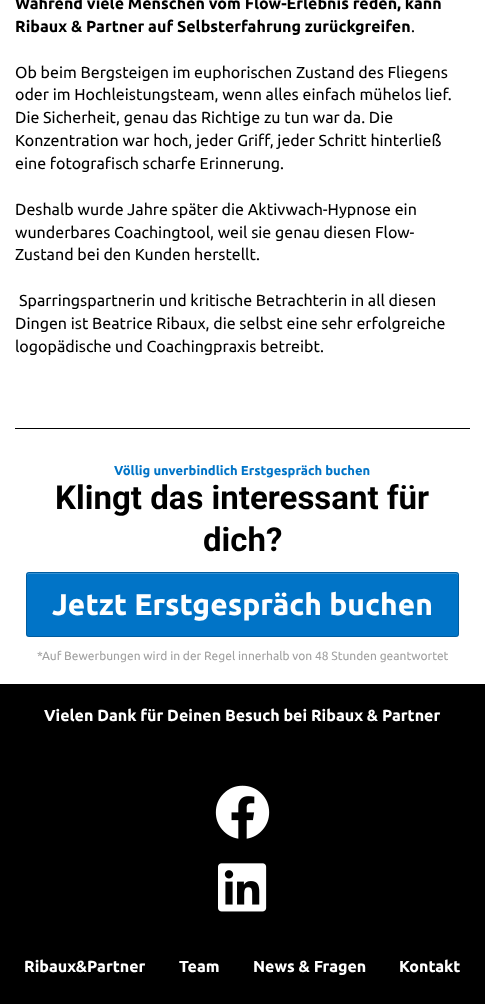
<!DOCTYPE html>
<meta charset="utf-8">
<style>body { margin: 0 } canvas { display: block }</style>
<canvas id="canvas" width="485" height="1004"></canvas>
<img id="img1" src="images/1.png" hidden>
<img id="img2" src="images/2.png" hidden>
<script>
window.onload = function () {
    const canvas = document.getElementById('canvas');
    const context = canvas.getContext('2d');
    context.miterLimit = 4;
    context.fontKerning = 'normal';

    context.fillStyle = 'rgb(255, 255, 255)';
    context.fillRect(0, 0, 485, 1004);
    context.fillStyle = 'rgb(0, 0, 0)';
    context.fillRect(15, 428, 455, 1);
    context.fillStyle = 'rgb(1, 116, 199)';
    context.beginPath();
    context.roundRect(26, 572, 433, 65, 3);
    context.fill();
    context.fillStyle = 'rgb(52, 144, 210)';
    context.beginPath();
    context.moveTo(29, 574);
    context.lineTo(456, 574);
    context.bezierCurveTo(457, 574, 458, 575, 458, 576);
    context.lineTo(458, 574);
    context.lineTo(456, 573);
    context.lineTo(29, 573);
    context.bezierCurveTo(27, 573, 27, 575, 27, 576);
    context.bezierCurveTo(27, 575, 28, 574, 29, 574);
    context.closePath();
    context.fill();
    context.beginPath();
    context.roundRect(26.5, 572.5, 432, 64, 2.5);
    context.strokeStyle = 'rgba(0, 0, 0, 0.2)';
    context.stroke();
    context.fillStyle = 'rgb(0, 0, 0)';
    context.fillRect(0, 684, 485, 320);
    context.drawImage(document.getElementById('img1'), 215, 785, 55, 54);
    context.drawImage(document.getElementById('img2'), 218, 863, 49, 49);
    context.font = 'bold 16px Ubuntu';
    context.fillText('Während viele Menschen vom Flow-Erlebnis reden, kann', 15, 9);
    context.fillText('Ribaux & Partner auf Selbsterfahrung zurückgreifen', 15, 32);
    context.font = '16px Ubuntu';
    context.fillText('.', 411, 32);
    context.fillText('Ob beim Bergsteigen im euphorischen Zustand des Fliegens', 15, 78);
    context.fillText('oder im Hochleistungsteam, wenn alles einfach mühelos lief.', 15, 100);
    context.fillText('Die Sicherheit, genau das Richtige zu tun war da. Die', 15, 123);
    context.fillText('Konzentration war hoch, jeder Griff, jeder Schritt hinterließ', 15, 146);
    context.fillText('eine fotografisch scharfe Erinnerung.', 15, 169);
    context.fillText('Deshalb wurde Jahre später die Aktivwach-Hypnose ein', 15, 215);
    context.fillText('wunderbares Coachingtool, weil sie genau diesen Flow-', 15, 238);
    context.fillText('Zustand bei den Kunden herstellt.', 15, 260);
    context.fillText('Sparringspartnerin und kritische Betrachterin in all diesen', 19, 306);
    context.fillText('Dingen ist Beatrice Ribaux, die selbst eine sehr erfolgreiche', 15, 329);
    context.fillText('logopädische und Coachingpraxis betreibt.', 15, 352);
    context.font = 'bold 13px Ubuntu';
    context.fillStyle = 'rgb(1, 116, 199)';
    context.fillText('Völlig unverbindlich Erstgespräch buchen', 114, 475);
    context.font = 'bold 33px Roboto';
    context.fillStyle = 'rgb(0, 0, 0)';
    context.fillText('Klingt das interessant für', 55, 509);
    context.fillText('dich?', 203, 551);
    context.font = 'bold 30px Ubuntu';
    context.fillStyle = 'rgb(255, 255, 255)';
    context.fillText('Jetzt Erstgespräch buchen', 52, 615);
    context.font = '12px Ubuntu';
    context.fillStyle = 'rgb(161, 161, 161)';
    context.fillText('*Auf Bewerbungen wird in der Regel innerhalb von 48 Stunden geantwortet', 37, 660);
    context.font = 'bold 16px Ubuntu';
    context.fillStyle = 'rgb(255, 255, 255)';
    context.fillText('Vielen Dank für Deinen Besuch bei Ribaux & Partner', 44, 721);
    context.fillText('Ribaux&Partner', 24, 972);
    context.fillText('Team', 179, 972);
    context.fillText('News & Fragen', 253, 972);
    context.fillText('Kontakt', 399, 972);
};
</script>
